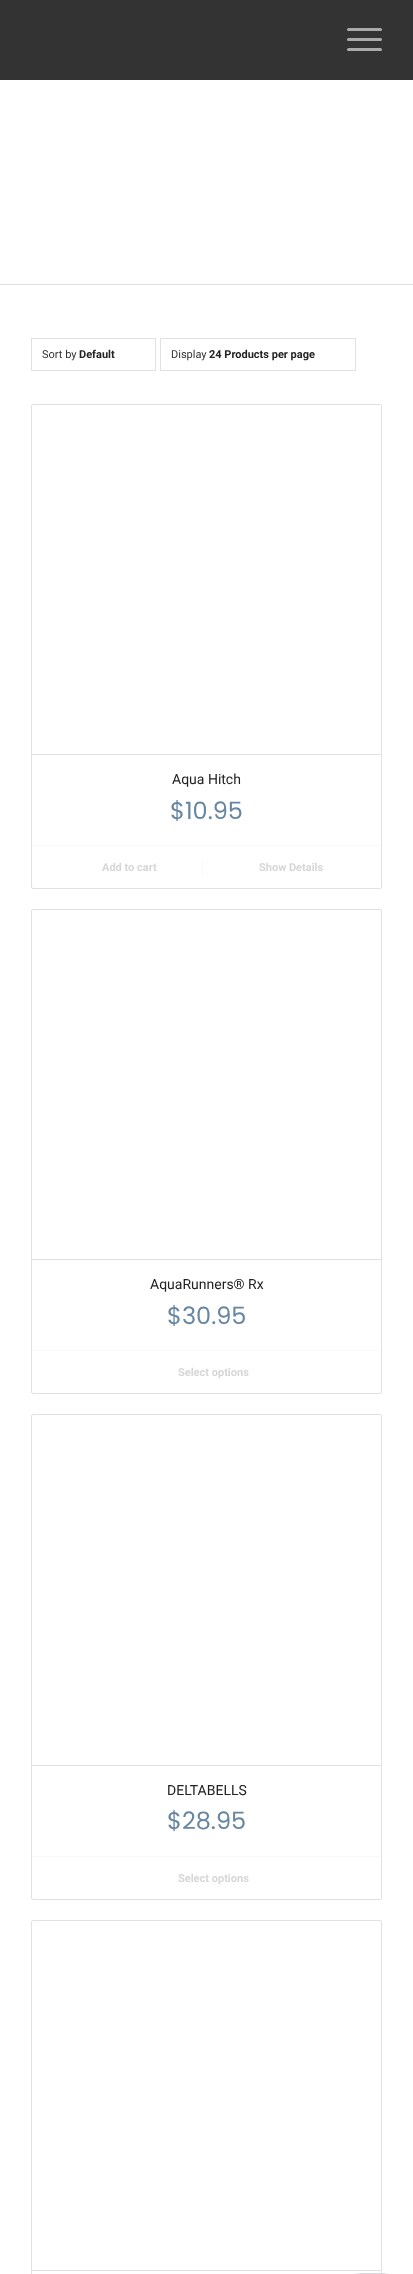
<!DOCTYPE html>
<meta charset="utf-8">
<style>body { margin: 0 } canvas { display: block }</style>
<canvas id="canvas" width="413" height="2274"></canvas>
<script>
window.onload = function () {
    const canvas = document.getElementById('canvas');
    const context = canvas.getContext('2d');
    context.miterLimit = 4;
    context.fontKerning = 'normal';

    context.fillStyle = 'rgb(255, 255, 255)';
    context.fillRect(0, 0, 413, 2274);
    context.fillStyle = 'rgb(51, 51, 51)';
    context.fillRect(0, 0, 413, 80);
    context.fillStyle = 'rgb(170, 170, 170)';
    context.beginPath();
    context.roundRect(347, 38, 35, 3, 1.5);
    context.fill();
    context.beginPath();
    context.roundRect(347, 28, 35, 3, 1.5);
    context.fill();
    context.beginPath();
    context.roundRect(347, 48, 35, 3, 1.5);
    context.fill();
    context.fillStyle = 'rgb(225, 225, 225)';
    context.fillRect(0, 284, 413, 1);
    context.strokeStyle = 'rgb(225, 225, 225)';
    context.strokeRect(31.5, 338.5, 124, 32);
    context.strokeRect(160.5, 338.5, 195, 32);
    context.beginPath();
    context.roundRect(31.5, 404.5, 350, 484, 1.5);
    context.stroke();
    context.fillRect(32, 754, 349, 1);
    context.fillStyle = 'rgb(249, 249, 249)';
    context.fillRect(32, 845, 349, 1);
    context.fillRect(202, 861, 1, 14);
    context.beginPath();
    context.roundRect(31.5, 909.5, 350, 484, 1.5);
    context.stroke();
    context.fillStyle = 'rgb(225, 225, 225)';
    context.fillRect(32, 1259, 349, 1);
    context.fillStyle = 'rgb(249, 249, 249)';
    context.fillRect(32, 1350, 349, 1);
    context.beginPath();
    context.roundRect(31.5, 1414.5, 350, 485, 1.5);
    context.stroke();
    context.fillStyle = 'rgb(225, 225, 225)';
    context.fillRect(32, 1765, 349, 1);
    context.fillStyle = 'rgb(249, 249, 249)';
    context.fillRect(32, 1856, 349, 1);
    context.beginPath();
    context.roundRect(31.5, 1920.5, 350, 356, 1.5);
    context.stroke();
    context.fillStyle = 'rgb(225, 225, 225)';
    context.fillRect(32, 2270, 349, 1);
    context.beginPath();
    context.roundRect(345.5, 2273.5, 52, 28, 26);
    context.strokeStyle = 'rgb(219, 218, 222)';
    context.stroke();
    context.font = '11px Roboto';
    context.fillStyle = 'rgb(51, 51, 51)';
    context.fillText('Sort by', 42, 358);
    context.font = 'bold 11px Roboto';
    context.fillStyle = 'rgb(34, 34, 34)';
    context.fillText('Default', 79, 358);
    context.font = '11px Roboto';
    context.fillStyle = 'rgb(51, 51, 51)';
    context.fillText('Display', 171, 358);
    context.font = 'bold 11px Roboto';
    context.fillStyle = 'rgb(34, 34, 34)';
    context.fillText('24 Products per page', 209, 358);
    context.font = '14px Roboto';
    context.fillText('Aqua Hitch', 172, 784);
    context.font = '24px Poppins';
    context.fillStyle = 'rgb(103, 134, 161)';
    context.fillText('$10.95', 170, 819);
    context.font = 'bold 11px Roboto';
    context.fillStyle = 'rgb(214, 214, 214)';
    context.fillText('Add to cart', 102, 871);
    context.fillText('Show Details', 259, 871);
    context.font = '14px Roboto';
    context.fillStyle = 'rgb(34, 34, 34)';
    context.fillText('AquaRunners® Rx', 150, 1289);
    context.font = '24px Poppins';
    context.fillStyle = 'rgb(103, 134, 161)';
    context.fillText('$30.95', 167, 1324);
    context.font = 'bold 11px Roboto';
    context.fillStyle = 'rgb(214, 214, 214)';
    context.fillText('Select options', 178, 1376);
    context.font = '14px Roboto';
    context.fillStyle = 'rgb(34, 34, 34)';
    context.fillText('DELTABELLS', 167, 1795);
    context.font = '24px Poppins';
    context.fillStyle = 'rgb(103, 134, 161)';
    context.fillText('$28.95', 167, 1829);
    context.font = 'bold 11px Roboto';
    context.fillStyle = 'rgb(214, 214, 214)';
    context.fillText('Select options', 178, 1882);
};
</script>
